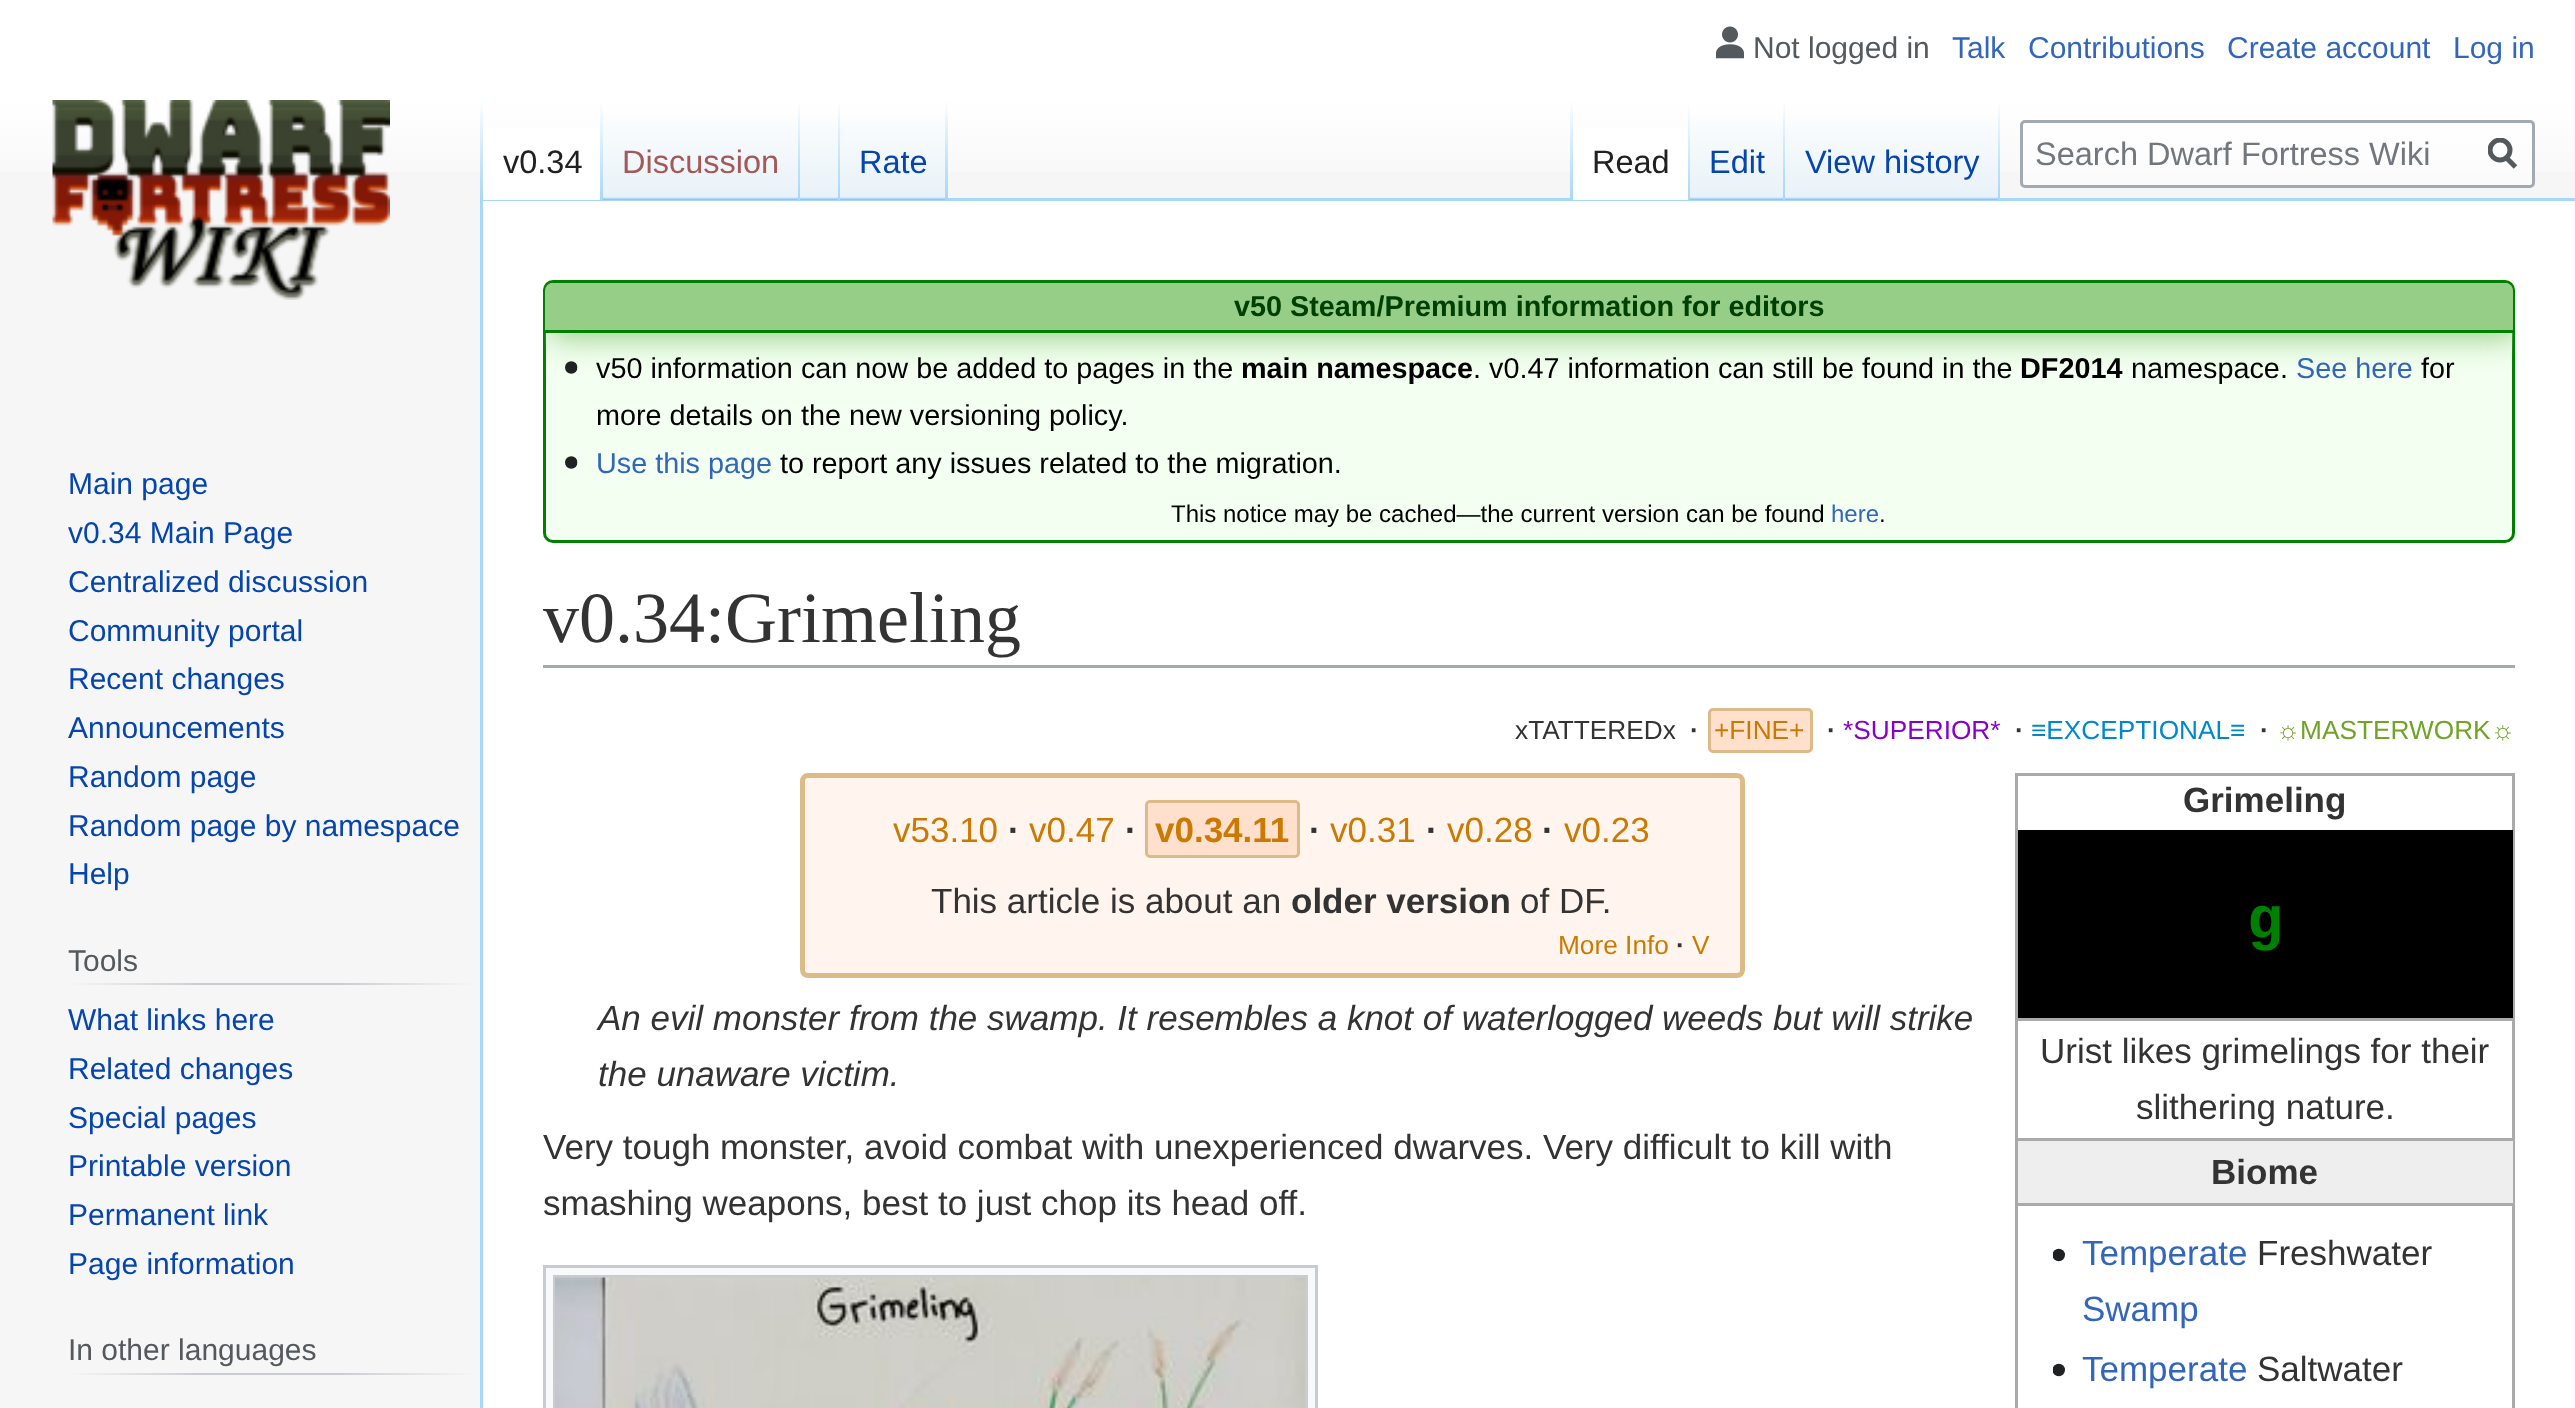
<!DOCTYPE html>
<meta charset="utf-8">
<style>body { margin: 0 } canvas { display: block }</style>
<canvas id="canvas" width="2575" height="1408"></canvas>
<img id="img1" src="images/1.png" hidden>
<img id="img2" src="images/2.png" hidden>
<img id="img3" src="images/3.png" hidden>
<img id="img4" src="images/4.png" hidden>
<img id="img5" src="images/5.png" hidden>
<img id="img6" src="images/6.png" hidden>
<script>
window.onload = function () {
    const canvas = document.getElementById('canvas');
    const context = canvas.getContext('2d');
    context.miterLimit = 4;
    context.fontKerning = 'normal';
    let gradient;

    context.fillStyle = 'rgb(246, 246, 246)';
    context.fillRect(0, 0, 2575, 1408);
    gradient = context.createLinearGradient(1288, 0, 1288, 200);
    gradient.addColorStop(0.5, 'rgb(255, 255, 255)');
    gradient.addColorStop(1, 'rgb(246, 246, 246)');
    context.fillStyle = gradient;
    context.fillRect(0, 0, 2575, 172);
    context.drawImage(document.getElementById('img1'), 1716, 26, 28, 33);
    context.fillStyle = 'rgb(167, 215, 249)';
    context.fillRect(480, 198, 2095, 3);
    context.fillRect(480, 198, 3, 1210);
    gradient = context.createLinearGradient(481, 100, 481, 200);
    gradient.addColorStop(0, 'rgba(167, 215, 249, 0)');
    gradient.addColorStop(1, 'rgb(167, 215, 249)');
    context.fillStyle = gradient;
    context.fillRect(480, 100, 3, 100);
    context.fillStyle = 'rgb(255, 255, 255)';
    context.fillRect(483, 128, 117, 72);
    gradient = context.createLinearGradient(601, 100, 601, 200);
    gradient.addColorStop(0, 'rgb(255, 255, 255)');
    gradient.addColorStop(1, 'rgb(167, 215, 249)');
    context.fillStyle = gradient;
    context.fillRect(600, 100, 3, 100);
    gradient = context.createLinearGradient(701, 200, 701, 100);
    gradient.addColorStop(0, 'rgb(119, 193, 246)');
    gradient.addColorStop(0.03, 'rgb(232, 242, 248)');
    gradient.addColorStop(1, 'rgb(255, 255, 255)');
    context.fillStyle = gradient;
    context.fillRect(603, 115, 197, 85);
    gradient = context.createLinearGradient(799, 100, 799, 200);
    gradient.addColorStop(0, 'rgba(167, 215, 249, 0)');
    gradient.addColorStop(1, 'rgb(167, 215, 249)');
    context.fillStyle = gradient;
    context.fillRect(798, 100, 2, 100);
    gradient = context.createLinearGradient(820, 200, 820, 100);
    gradient.addColorStop(0, 'rgb(119, 193, 246)');
    gradient.addColorStop(0.03, 'rgb(232, 242, 248)');
    gradient.addColorStop(1, 'rgb(255, 255, 255)');
    context.fillStyle = gradient;
    context.fillRect(800, 115, 40, 85);
    gradient = context.createLinearGradient(839, 100, 839, 200);
    gradient.addColorStop(0, 'rgba(167, 215, 249, 0)');
    gradient.addColorStop(1, 'rgb(167, 215, 249)');
    context.fillStyle = gradient;
    context.fillRect(838, 100, 2, 100);
    gradient = context.createLinearGradient(894, 200, 894, 100);
    gradient.addColorStop(0, 'rgb(119, 193, 246)');
    gradient.addColorStop(0.03, 'rgb(232, 242, 248)');
    gradient.addColorStop(1, 'rgb(255, 255, 255)');
    context.fillStyle = gradient;
    context.fillRect(840, 115, 108, 85);
    gradient = context.createLinearGradient(946, 100, 946, 200);
    gradient.addColorStop(0, 'rgba(167, 215, 249, 0)');
    gradient.addColorStop(1, 'rgb(167, 215, 249)');
    context.fillStyle = gradient;
    context.fillRect(945, 100, 3, 100);
    gradient = context.createLinearGradient(1571, 100, 1571, 200);
    gradient.addColorStop(0, 'rgba(167, 215, 249, 0)');
    gradient.addColorStop(1, 'rgb(167, 215, 249)');
    context.fillStyle = gradient;
    context.fillRect(1570, 100, 3, 100);
    context.fillStyle = 'rgb(255, 255, 255)';
    context.fillRect(1573, 128, 115, 72);
    gradient = context.createLinearGradient(1689, 100, 1689, 200);
    gradient.addColorStop(0, 'rgb(255, 255, 255)');
    gradient.addColorStop(1, 'rgb(167, 215, 249)');
    context.fillStyle = gradient;
    context.fillRect(1688, 100, 2, 100);
    gradient = context.createLinearGradient(1738, 200, 1738, 100);
    gradient.addColorStop(0, 'rgb(119, 193, 246)');
    gradient.addColorStop(0.03, 'rgb(232, 242, 248)');
    gradient.addColorStop(1, 'rgb(255, 255, 255)');
    context.fillStyle = gradient;
    context.fillRect(1690, 115, 95, 85);
    gradient = context.createLinearGradient(1784, 100, 1784, 200);
    gradient.addColorStop(0, 'rgba(167, 215, 249, 0)');
    gradient.addColorStop(1, 'rgb(167, 215, 249)');
    context.fillStyle = gradient;
    context.fillRect(1783, 100, 2, 100);
    gradient = context.createLinearGradient(1893, 200, 1893, 100);
    gradient.addColorStop(0, 'rgb(119, 193, 246)');
    gradient.addColorStop(0.03, 'rgb(232, 242, 248)');
    gradient.addColorStop(1, 'rgb(255, 255, 255)');
    context.fillStyle = gradient;
    context.fillRect(1785, 115, 215, 85);
    gradient = context.createLinearGradient(1999, 100, 1999, 200);
    gradient.addColorStop(0, 'rgba(167, 215, 249, 0)');
    gradient.addColorStop(1, 'rgb(167, 215, 249)');
    context.fillStyle = gradient;
    context.fillRect(1998, 100, 2, 100);
    context.fillStyle = 'rgba(255, 255, 255, 0.5)';
    context.beginPath();
    context.roundRect(2021.5, 121.5, 512, 65, 3.5);
    context.fill();
    context.strokeStyle = 'rgb(162, 169, 177)';
    context.lineWidth = 3;
    context.stroke();
    context.beginPath();
    context.moveTo(2515.5, 167);
    context.lineTo(2505.5, 157);
    context.strokeStyle = 'rgb(84, 89, 93)';
    context.lineWidth = 5;
    context.stroke();
    context.save();
    context.beginPath();
    context.rect(2488, 138, 30, 32);
    context.clip();
    context.beginPath();
    context.arc(2500, 150, 10, 0, 2 * Math.PI);
    context.stroke();
    context.restore();
    context.drawImage(document.getElementById('img2'), 52, 100, 338, 200);
    gradient = context.createLinearGradient(68, 984, 475, 984);
    gradient.addColorStop(0, 'rgb(246, 246, 246)');
    gradient.addColorStop(0.33, 'rgb(200, 204, 209)');
    gradient.addColorStop(0.66, 'rgb(200, 204, 209)');
    gradient.addColorStop(1, 'rgb(246, 246, 246)');
    context.fillStyle = gradient;
    context.fillRect(68, 983, 407, 2);
    gradient = context.createLinearGradient(68, 1374, 475, 1374);
    gradient.addColorStop(0, 'rgb(246, 246, 246)');
    gradient.addColorStop(0.33, 'rgb(200, 204, 209)');
    gradient.addColorStop(0.66, 'rgb(200, 204, 209)');
    gradient.addColorStop(1, 'rgb(246, 246, 246)');
    context.fillStyle = gradient;
    context.fillRect(68, 1373, 407, 2);
    context.fillStyle = 'rgb(255, 255, 255)';
    context.fillRect(483, 201, 2092, 1207);
    context.fillStyle = 'rgb(243, 255, 240)';
    context.beginPath();
    context.roundRect(544.5, 281.5, 1969, 260, 8.5);
    context.fill();
    context.strokeStyle = 'rgb(0, 128, 0)';
    context.lineWidth = 3;
    context.stroke();
    context.save();
    context.beginPath();
    context.roundRect(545, 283, 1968, 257, 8);
    context.clip();
    context.fillStyle = 'rgb(151, 206, 135)';
    context.filter = 'blur(15px)';
    context.beginPath();
    context.rect(550, 288, 1968, 50);
    context.fill();
    context.filter = 'none';
    context.restore();
    context.fillStyle = 'rgb(151, 206, 135)';
    context.beginPath();
    context.roundRect(545, 283, 1968, 50, [8, 8, 0, 0]);
    context.fill();
    context.fillStyle = 'rgb(0, 128, 0)';
    context.fillRect(545, 330, 1968, 3);
    context.drawImage(document.getElementById('img3'), 565, 361, 13, 13);
    context.drawImage(document.getElementById('img4'), 565, 456, 13, 13);
    context.fillStyle = 'rgb(162, 169, 177)';
    context.fillRect(543, 665, 1972, 3);
    context.fillStyle = 'rgb(255, 224, 204)';
    context.beginPath();
    context.roundRect(1709.5, 709.5, 102, 42, 3.5);
    context.fill();
    context.strokeStyle = 'rgb(221, 187, 136)';
    context.stroke();
    context.fillStyle = 'rgb(255, 245, 238)';
    context.beginPath();
    context.roundRect(802.5, 775.5, 940, 200, 5.5);
    context.fill();
    context.lineWidth = 5;
    context.stroke();
    context.fillStyle = 'rgb(255, 224, 204)';
    context.beginPath();
    context.roundRect(1146.5, 801.5, 152, 55, 3.5);
    context.fill();
    context.lineWidth = 3;
    context.stroke();
    context.strokeStyle = 'rgb(170, 170, 170)';
    context.strokeRect(2016.5, 774.5, 497, 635);
    context.fillStyle = 'rgb(0, 0, 0)';
    context.fillRect(2018, 830, 495, 188);
    context.fillStyle = 'rgb(170, 170, 170)';
    context.fillRect(2018, 1018, 495, 3);
    context.fillStyle = 'rgb(238, 238, 238)';
    context.fillRect(2018, 1141, 495, 62);
    context.fillStyle = 'rgb(170, 170, 170)';
    context.fillRect(2018, 1138, 495, 3);
    context.fillRect(2018, 1203, 495, 3);
    context.drawImage(document.getElementById('img5'), 2053, 1248, 12, 14);
    context.drawImage(document.getElementById('img5'), 2053, 1363, 12, 14);
    context.fillStyle = 'rgb(248, 249, 250)';
    context.beginPath();
    context.rect(544.5, 1266.5, 772, 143);
    context.fill();
    context.strokeStyle = 'rgb(200, 204, 209)';
    context.stroke();
    context.strokeRect(554.5, 1276.5, 752, 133);
    context.drawImage(document.getElementById('img6'), 555, 1277, 750, 131);
    context.font = '30px Liberation Sans';
    context.fillStyle = 'rgb(84, 89, 93)';
    context.fillText('Not logged in', 1753, 58);
    context.fillStyle = 'rgb(51, 102, 187)';
    context.fillText('Talk', 1952, 58);
    context.fillText('Contributions', 2028, 58);
    context.fillText('Create account', 2227, 58);
    context.fillText('Log in', 2453, 58);
    context.font = '32.5px Liberation Sans';
    context.fillStyle = 'rgb(32, 33, 34)';
    context.fillText('v0.34', 503, 173);
    context.fillStyle = 'rgb(165, 88, 88)';
    context.fillText('Discussion', 622, 173);
    context.fillStyle = 'rgb(6, 69, 173)';
    context.fillText('Rate', 859, 173);
    context.fillStyle = 'rgb(32, 33, 34)';
    context.fillText('Read', 1592, 173);
    context.fillStyle = 'rgb(6, 69, 173)';
    context.fillText('Edit', 1709, 173);
    context.fillText('View history', 1805, 173);
    context.fillStyle = 'rgb(114, 119, 125)';
    context.fillText('Search Dwarf Fortress Wiki', 2035, 165);
    context.font = '30px Liberation Sans';
    context.fillStyle = 'rgb(6, 69, 173)';
    context.fillText('Main page', 68, 494);
    context.fillText('v0.34 Main Page', 68, 543);
    context.fillText('Centralized discussion', 68, 592);
    context.fillText('Community portal', 68, 641);
    context.fillText('Recent changes', 68, 689);
    context.fillText('Announcements', 68, 738);
    context.fillText('Random page', 68, 787);
    context.fillText('Random page by namespace', 68, 836);
    context.fillText('Help', 68, 884);
    context.fillStyle = 'rgb(84, 89, 93)';
    context.fillText('Tools', 68, 971);
    context.fillStyle = 'rgb(6, 69, 173)';
    context.fillText('What links here', 68, 1030);
    context.fillText('Related changes', 68, 1079);
    context.fillText('Special pages', 68, 1128);
    context.fillText('Printable version', 68, 1176);
    context.fillText('Permanent link', 68, 1225);
    context.fillText('Page information', 68, 1274);
    context.fillStyle = 'rgb(84, 89, 93)';
    context.fillText('In other languages', 68, 1360);
    context.font = 'bold 28.8px Liberation Sans';
    context.fillStyle = 'rgb(0, 64, 0)';
    context.fillText('v50 Steam/Premium information for editors', 1234, 316);
    context.font = '28.8px Liberation Sans';
    context.fillStyle = 'rgb(0, 0, 0)';
    context.fillText('v50 information can now be added to pages in the', 596, 378);
    context.font = 'bold 28.8px Liberation Sans';
    context.fillText('main namespace', 1241, 378);
    context.font = '28.8px Liberation Sans';
    context.fillText('. v0.47 information can still be found in the', 1473, 378);
    context.font = 'bold 28.8px Liberation Sans';
    context.fillText('DF2014', 2020, 378);
    context.font = '28.8px Liberation Sans';
    context.fillText('namespace.', 2131, 378);
    context.fillStyle = 'rgb(51, 102, 187)';
    context.fillText('See here', 2296, 378);
    context.fillStyle = 'rgb(0, 0, 0)';
    context.fillText('for', 2421, 378);
    context.fillText('more details on the new versioning policy.', 596, 425);
    context.fillStyle = 'rgb(51, 102, 187)';
    context.fillText('Use this page', 596, 473);
    context.fillStyle = 'rgb(0, 0, 0)';
    context.fillText('to report any issues related to the migration.', 780, 473);
    context.font = '24px Liberation Sans';
    context.fillText('This notice may be cached—the current version can be found', 1171, 522);
    context.fillStyle = 'rgb(51, 102, 187)';
    context.fillText('here', 1831, 522);
    context.fillStyle = 'rgb(0, 0, 0)';
    context.fillText('.', 1879, 522);
    context.font = '72px Liberation Serif';
    context.fillStyle = 'rgb(51, 51, 51)';
    context.fillText('v0.34:Grimeling', 543, 642);
    context.font = '26.25px Liberation Sans';
    context.fillText('xTATTEREDx', 1515, 739);
    context.font = 'bold 26.25px Liberation Sans';
    context.fillText('·', 1690, 739);
    context.font = '26.25px Liberation Sans';
    context.fillStyle = 'rgb(202, 122, 2)';
    context.fillText('+FINE+', 1714, 739);
    context.font = 'bold 26.25px Liberation Sans';
    context.fillStyle = 'rgb(51, 51, 51)';
    context.fillText('·', 1827, 739);
    context.font = '26.25px Liberation Sans';
    context.fillStyle = 'rgb(136, 0, 204)';
    context.fillText('*SUPERIOR*', 1843, 739);
    context.font = 'bold 26.25px Liberation Sans';
    context.fillStyle = 'rgb(51, 51, 51)';
    context.fillText('·', 2015, 739);
    context.font = '26.25px Liberation Sans';
    context.fillStyle = 'rgb(0, 136, 204)';
    context.fillText('≡EXCEPTIONAL≡', 2031, 739);
    context.font = 'bold 26.25px Liberation Sans';
    context.fillStyle = 'rgb(51, 51, 51)';
    context.fillText('·', 2260, 739);
    context.font = '26.25px Liberation Sans';
    context.fillStyle = 'rgb(114, 163, 41)';
    context.fillText('☼MASTERWORK☼', 2276, 739);
    context.font = '35px Liberation Sans';
    context.fillStyle = 'rgb(202, 122, 2)';
    context.fillText('v53.10', 893, 842);
    context.font = 'bold 35px Liberation Sans';
    context.fillStyle = 'rgb(51, 51, 51)';
    context.fillText('·', 1008, 842);
    context.font = '35px Liberation Sans';
    context.fillStyle = 'rgb(202, 122, 2)';
    context.fillText('v0.47', 1029, 842);
    context.font = 'bold 35px Liberation Sans';
    context.fillStyle = 'rgb(51, 51, 51)';
    context.fillText('·', 1125, 842);
    context.fillStyle = 'rgb(202, 122, 2)';
    context.fillText('v0.34.11', 1155, 842);
    context.fillStyle = 'rgb(51, 51, 51)';
    context.fillText('·', 1309, 842);
    context.font = '35px Liberation Sans';
    context.fillStyle = 'rgb(202, 122, 2)';
    context.fillText('v0.31', 1330, 842);
    context.font = 'bold 35px Liberation Sans';
    context.fillStyle = 'rgb(51, 51, 51)';
    context.fillText('·', 1426, 842);
    context.font = '35px Liberation Sans';
    context.fillStyle = 'rgb(202, 122, 2)';
    context.fillText('v0.28', 1447, 842);
    context.font = 'bold 35px Liberation Sans';
    context.fillStyle = 'rgb(51, 51, 51)';
    context.fillText('·', 1542, 842);
    context.font = '35px Liberation Sans';
    context.fillStyle = 'rgb(202, 122, 2)';
    context.fillText('v0.23', 1564, 842);
    context.fillStyle = 'rgb(51, 51, 51)';
    context.fillText('This article is about an', 931, 913);
    context.font = 'bold 35px Liberation Sans';
    context.fillText('older version', 1291, 913);
    context.font = '35px Liberation Sans';
    context.fillText('of DF.', 1520, 913);
    context.font = '26.25px Liberation Sans';
    context.fillStyle = 'rgb(202, 122, 2)';
    context.fillText('More Info', 1558, 954);
    context.font = 'bold 26.25px Liberation Sans';
    context.fillStyle = 'rgb(51, 51, 51)';
    context.fillText('·', 1676, 954);
    context.font = '26.25px Liberation Sans';
    context.fillStyle = 'rgb(202, 122, 2)';
    context.fillText('V', 1692, 954);
    context.font = 'bold 35px Liberation Sans';
    context.fillStyle = 'rgb(51, 51, 51)';
    context.fillText('Grimeling', 2183, 812);
    context.font = 'bold 60px Liberation Mono';
    context.fillStyle = 'rgb(0, 128, 0)';
    context.fillText('g', 2247, 938);
    context.font = '35px Liberation Sans';
    context.fillStyle = 'rgb(51, 51, 51)';
    context.fillText('Urist likes grimelings for their', 2040, 1063);
    context.fillText('slithering nature.', 2136, 1119);
    context.font = 'bold 35px Liberation Sans';
    context.fillText('Biome', 2211, 1184);
    context.font = '35px Liberation Sans';
    context.fillStyle = 'rgb(51, 102, 187)';
    context.fillText('Temperate', 2082, 1265);
    context.fillStyle = 'rgb(51, 51, 51)';
    context.fillText('Freshwater', 2257, 1265);
    context.fillStyle = 'rgb(51, 102, 187)';
    context.fillText('Swamp', 2082, 1321);
    context.fillText('Temperate', 2082, 1381);
    context.fillStyle = 'rgb(51, 51, 51)';
    context.fillText('Saltwater', 2257, 1381);
    context.font = 'italic 35px Liberation Sans';
    context.fillText('An evil monster from the swamp. It resembles a knot of waterlogged weeds but will strike', 598, 1030);
    context.fillText('the unaware victim.', 598, 1086);
    context.font = '35px Liberation Sans';
    context.fillText('Very tough monster, avoid combat with unexperienced dwarves. Very difficult to kill with', 543, 1159);
    context.fillText('smashing weapons, best to just chop its head off.', 543, 1215);
};
</script>
